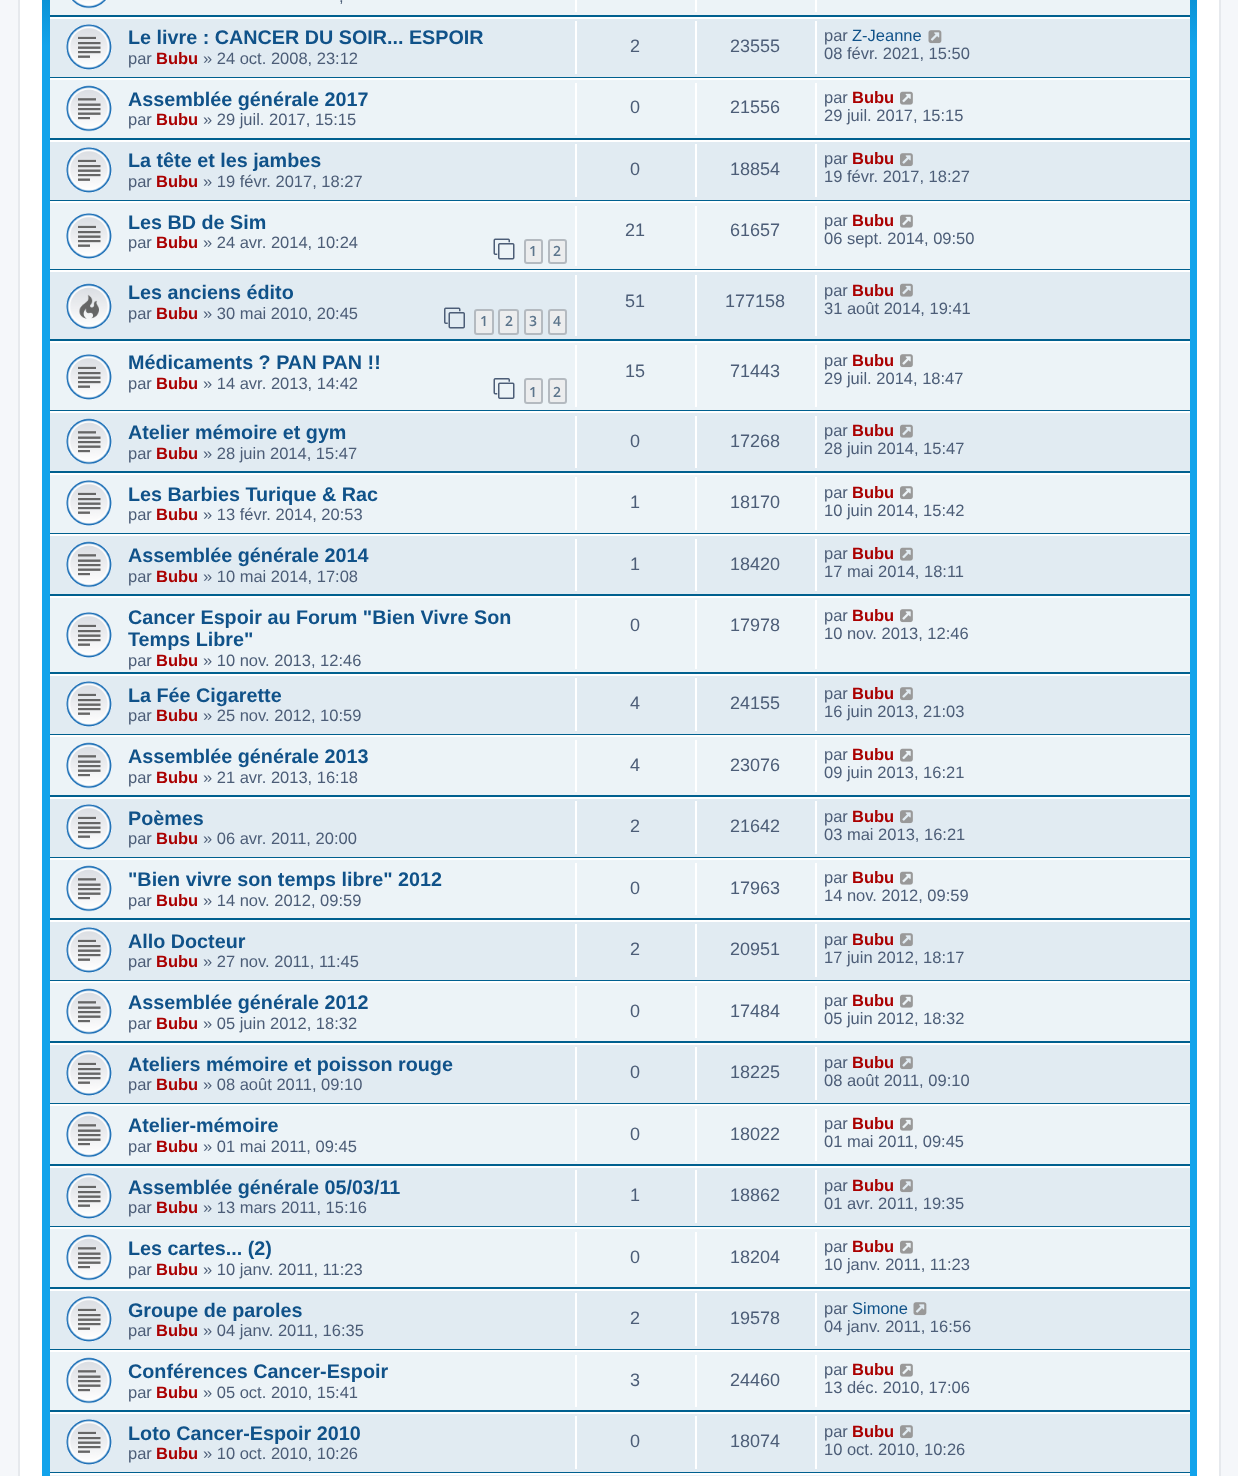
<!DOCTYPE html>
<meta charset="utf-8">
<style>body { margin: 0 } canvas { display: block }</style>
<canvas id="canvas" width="1238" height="1476"></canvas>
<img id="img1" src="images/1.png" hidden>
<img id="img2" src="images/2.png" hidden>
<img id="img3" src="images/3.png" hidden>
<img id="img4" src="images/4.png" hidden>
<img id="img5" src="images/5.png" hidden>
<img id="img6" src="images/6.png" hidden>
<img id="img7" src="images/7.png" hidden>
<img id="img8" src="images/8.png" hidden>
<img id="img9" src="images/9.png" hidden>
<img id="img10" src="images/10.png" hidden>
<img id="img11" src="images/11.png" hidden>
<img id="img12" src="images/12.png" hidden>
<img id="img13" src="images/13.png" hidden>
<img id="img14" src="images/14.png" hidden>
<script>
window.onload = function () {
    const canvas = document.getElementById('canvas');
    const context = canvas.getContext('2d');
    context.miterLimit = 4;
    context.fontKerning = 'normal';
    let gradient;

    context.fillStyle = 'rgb(245, 247, 250)';
    context.fillRect(0, 0, 1238, 1476);
    context.fillStyle = 'rgb(255, 255, 255)';
    context.beginPath();
    context.rect(19, -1, 1201, 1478);
    context.fill();
    context.strokeStyle = 'rgb(230, 233, 237)';
    context.lineWidth = 2;
    context.stroke();
    gradient = context.createLinearGradient(619, -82, 620, 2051);
    gradient.addColorStop(0, 'rgb(106, 206, 255)');
    gradient.addColorStop(0, 'rgb(0, 118, 177)');
    gradient.addColorStop(0.06, 'rgb(18, 163, 235)');
    gradient.addColorStop(1, 'rgb(18, 163, 235)');
    context.fillStyle = gradient;
    context.fillRect(42, 0, 1155, 1476);
    context.fillStyle = 'rgb(236, 243, 247)';
    context.fillRect(50, 0, 1140, 15);
    context.fillStyle = 'rgb(0, 96, 143)';
    context.fillRect(50, 15, 1140, 2);
    context.drawImage(document.getElementById('img1'), 71, 0, 36, 9);
    context.fillStyle = 'rgb(255, 255, 255)';
    context.fillRect(575, 0, 2, 12);
    context.fillRect(695, 0, 2, 12);
    context.fillRect(815, 0, 2, 12);
    context.fillStyle = 'rgb(225, 235, 242)';
    context.fillRect(50, 19, 1140, 58);
    context.fillStyle = 'rgb(255, 255, 255)';
    context.fillRect(50, 17, 1140, 2);
    context.fillStyle = 'rgb(0, 96, 143)';
    context.fillRect(50, 77, 1140, 1);
    context.drawImage(document.getElementById('img2'), 66, 24, 46, 46);
    context.fillStyle = 'rgb(255, 255, 255)';
    context.fillRect(575, 21, 2, 53);
    context.fillRect(695, 21, 2, 53);
    context.fillRect(815, 21, 2, 53);
    context.drawImage(document.getElementById('img3'), 928, 30, 14, 14);
    context.fillStyle = 'rgb(236, 243, 247)';
    context.fillRect(50, 80, 1140, 58);
    context.fillStyle = 'rgb(255, 255, 255)';
    context.fillRect(50, 78, 1140, 2);
    context.fillStyle = 'rgb(0, 96, 143)';
    context.fillRect(50, 138, 1140, 2);
    context.drawImage(document.getElementById('img4'), 66, 85, 46, 47);
    context.fillStyle = 'rgb(255, 255, 255)';
    context.fillRect(575, 83, 2, 52);
    context.fillRect(695, 83, 2, 52);
    context.fillRect(815, 83, 2, 52);
    context.drawImage(document.getElementById('img5'), 900, 91, 13, 14);
    context.fillStyle = 'rgb(225, 235, 242)';
    context.fillRect(50, 142, 1140, 58);
    context.fillStyle = 'rgb(255, 255, 255)';
    context.fillRect(50, 140, 1140, 2);
    context.fillStyle = 'rgb(0, 96, 143)';
    context.fillRect(50, 200, 1140, 1);
    context.drawImage(document.getElementById('img2'), 66, 147, 46, 46);
    context.fillStyle = 'rgb(255, 255, 255)';
    context.fillRect(575, 144, 2, 53);
    context.fillRect(695, 144, 2, 53);
    context.fillRect(815, 144, 2, 53);
    context.drawImage(document.getElementById('img6'), 900, 153, 13, 14);
    context.fillStyle = 'rgb(236, 243, 247)';
    context.fillRect(50, 203, 1140, 66);
    context.fillStyle = 'rgb(255, 255, 255)';
    context.fillRect(50, 201, 1140, 2);
    context.fillStyle = 'rgb(0, 96, 143)';
    context.fillRect(50, 269, 1140, 1);
    context.drawImage(document.getElementById('img7'), 66, 213, 46, 46);
    context.drawImage(document.getElementById('img8'), 493, 238, 22, 22);
    context.fillStyle = 'rgb(236, 237, 238)';
    context.beginPath();
    context.roundRect(525, 240, 17, 23, 2);
    context.fill();
    context.strokeStyle = 'rgb(180, 186, 192)';
    context.stroke();
    context.beginPath();
    context.roundRect(549, 240, 17, 23, 2);
    context.fill();
    context.stroke();
    context.fillStyle = 'rgb(255, 255, 255)';
    context.fillRect(575, 206, 2, 60);
    context.fillRect(695, 206, 2, 60);
    context.fillRect(815, 206, 2, 60);
    context.drawImage(document.getElementById('img5'), 900, 214, 13, 14);
    context.fillStyle = 'rgb(225, 235, 242)';
    context.fillRect(50, 272, 1140, 67);
    context.fillStyle = 'rgb(255, 255, 255)';
    context.fillRect(50, 270, 1140, 2);
    context.fillStyle = 'rgb(0, 96, 143)';
    context.fillRect(50, 339, 1140, 2);
    context.drawImage(document.getElementById('img9'), 66, 283, 46, 47);
    context.drawImage(document.getElementById('img10'), 444, 307, 21, 22);
    context.fillStyle = 'rgb(236, 237, 238)';
    context.beginPath();
    context.roundRect(475, 310, 18, 24, 2);
    context.fill();
    context.stroke();
    context.beginPath();
    context.roundRect(499, 310, 19, 24, 2);
    context.fill();
    context.stroke();
    context.beginPath();
    context.roundRect(525, 310, 17, 24, 2);
    context.fill();
    context.stroke();
    context.beginPath();
    context.roundRect(549, 310, 17, 24, 2);
    context.fill();
    context.stroke();
    context.fillStyle = 'rgb(255, 255, 255)';
    context.fillRect(575, 275, 2, 61);
    context.fillRect(695, 275, 2, 61);
    context.fillRect(815, 275, 2, 61);
    context.drawImage(document.getElementById('img11'), 900, 283, 13, 14);
    context.fillStyle = 'rgb(236, 243, 247)';
    context.fillRect(50, 343, 1140, 67);
    context.fillStyle = 'rgb(255, 255, 255)';
    context.fillRect(50, 341, 1140, 2);
    context.fillStyle = 'rgb(0, 96, 143)';
    context.fillRect(50, 410, 1140, 1);
    context.drawImage(document.getElementById('img7'), 66, 354, 46, 46);
    context.drawImage(document.getElementById('img12'), 493, 378, 22, 21);
    context.fillStyle = 'rgb(236, 237, 238)';
    context.beginPath();
    context.roundRect(525, 379, 17, 24, 2);
    context.fill();
    context.stroke();
    context.beginPath();
    context.roundRect(549, 379, 17, 24, 2);
    context.fill();
    context.stroke();
    context.fillStyle = 'rgb(255, 255, 255)';
    context.fillRect(575, 345, 2, 62);
    context.fillRect(695, 345, 2, 62);
    context.fillRect(815, 345, 2, 62);
    context.drawImage(document.getElementById('img13'), 900, 354, 13, 14);
    context.fillStyle = 'rgb(225, 235, 242)';
    context.fillRect(50, 413, 1140, 58);
    context.fillStyle = 'rgb(255, 255, 255)';
    context.fillRect(50, 411, 1140, 2);
    context.fillStyle = 'rgb(0, 96, 143)';
    context.fillRect(50, 471, 1140, 2);
    context.drawImage(document.getElementById('img14'), 66, 418, 46, 47);
    context.fillStyle = 'rgb(255, 255, 255)';
    context.fillRect(575, 416, 2, 52);
    context.fillRect(695, 416, 2, 52);
    context.fillRect(815, 416, 2, 52);
    context.drawImage(document.getElementById('img11'), 900, 424, 13, 14);
    context.fillStyle = 'rgb(236, 243, 247)';
    context.fillRect(50, 475, 1140, 58);
    context.fillStyle = 'rgb(255, 255, 255)';
    context.fillRect(50, 473, 1140, 2);
    context.fillStyle = 'rgb(0, 96, 143)';
    context.fillRect(50, 533, 1140, 1);
    context.drawImage(document.getElementById('img7'), 66, 480, 46, 46);
    context.fillStyle = 'rgb(255, 255, 255)';
    context.fillRect(575, 477, 2, 53);
    context.fillRect(695, 477, 2, 53);
    context.fillRect(815, 477, 2, 53);
    context.drawImage(document.getElementById('img13'), 900, 486, 13, 14);
    context.fillStyle = 'rgb(225, 235, 242)';
    context.fillRect(50, 536, 1140, 58);
    context.fillStyle = 'rgb(255, 255, 255)';
    context.fillRect(50, 534, 1140, 2);
    context.fillStyle = 'rgb(0, 96, 143)';
    context.fillRect(50, 594, 1140, 2);
    context.drawImage(document.getElementById('img14'), 66, 541, 46, 47);
    context.fillStyle = 'rgb(255, 255, 255)';
    context.fillRect(575, 539, 2, 52);
    context.fillRect(695, 539, 2, 52);
    context.fillRect(815, 539, 2, 52);
    context.drawImage(document.getElementById('img11'), 900, 547, 13, 14);
    context.fillStyle = 'rgb(236, 243, 247)';
    context.fillRect(50, 598, 1140, 74);
    context.fillStyle = 'rgb(255, 255, 255)';
    context.fillRect(50, 596, 1140, 2);
    context.fillStyle = 'rgb(0, 96, 143)';
    context.fillRect(50, 672, 1140, 2);
    context.drawImage(document.getElementById('img7'), 66, 612, 46, 46);
    context.fillStyle = 'rgb(255, 255, 255)';
    context.fillRect(575, 600, 2, 69);
    context.fillRect(695, 600, 2, 69);
    context.fillRect(815, 600, 2, 69);
    context.drawImage(document.getElementById('img13'), 900, 609, 13, 14);
    context.fillStyle = 'rgb(225, 235, 242)';
    context.fillRect(50, 676, 1140, 58);
    context.fillStyle = 'rgb(255, 255, 255)';
    context.fillRect(50, 674, 1140, 2);
    context.fillStyle = 'rgb(0, 96, 143)';
    context.fillRect(50, 734, 1140, 1);
    context.drawImage(document.getElementById('img2'), 66, 681, 46, 46);
    context.fillStyle = 'rgb(255, 255, 255)';
    context.fillRect(575, 678, 2, 53);
    context.fillRect(695, 678, 2, 53);
    context.fillRect(815, 678, 2, 53);
    context.drawImage(document.getElementById('img6'), 900, 687, 13, 14);
    context.fillStyle = 'rgb(236, 243, 247)';
    context.fillRect(50, 737, 1140, 58);
    context.fillStyle = 'rgb(255, 255, 255)';
    context.fillRect(50, 735, 1140, 2);
    context.fillStyle = 'rgb(0, 96, 143)';
    context.fillRect(50, 795, 1140, 2);
    context.drawImage(document.getElementById('img4'), 66, 742, 46, 47);
    context.fillStyle = 'rgb(255, 255, 255)';
    context.fillRect(575, 740, 2, 52);
    context.fillRect(695, 740, 2, 52);
    context.fillRect(815, 740, 2, 52);
    context.drawImage(document.getElementById('img5'), 900, 748, 13, 14);
    context.fillStyle = 'rgb(225, 235, 242)';
    context.fillRect(50, 799, 1140, 58);
    context.fillStyle = 'rgb(255, 255, 255)';
    context.fillRect(50, 797, 1140, 2);
    context.fillStyle = 'rgb(0, 96, 143)';
    context.fillRect(50, 857, 1140, 1);
    context.drawImage(document.getElementById('img2'), 66, 804, 46, 46);
    context.fillStyle = 'rgb(255, 255, 255)';
    context.fillRect(575, 801, 2, 53);
    context.fillRect(695, 801, 2, 53);
    context.fillRect(815, 801, 2, 53);
    context.drawImage(document.getElementById('img6'), 900, 810, 13, 14);
    context.fillStyle = 'rgb(236, 243, 247)';
    context.fillRect(50, 860, 1140, 58);
    context.fillStyle = 'rgb(255, 255, 255)';
    context.fillRect(50, 858, 1140, 2);
    context.fillStyle = 'rgb(0, 96, 143)';
    context.fillRect(50, 918, 1140, 2);
    context.drawImage(document.getElementById('img4'), 66, 865, 46, 47);
    context.fillStyle = 'rgb(255, 255, 255)';
    context.fillRect(575, 863, 2, 52);
    context.fillRect(695, 863, 2, 52);
    context.fillRect(815, 863, 2, 52);
    context.drawImage(document.getElementById('img5'), 900, 871, 13, 14);
    context.fillStyle = 'rgb(225, 235, 242)';
    context.fillRect(50, 922, 1140, 58);
    context.fillStyle = 'rgb(255, 255, 255)';
    context.fillRect(50, 920, 1140, 2);
    context.fillStyle = 'rgb(0, 96, 143)';
    context.fillRect(50, 980, 1140, 1);
    context.drawImage(document.getElementById('img2'), 66, 927, 46, 46);
    context.fillStyle = 'rgb(255, 255, 255)';
    context.fillRect(575, 924, 2, 53);
    context.fillRect(695, 924, 2, 53);
    context.fillRect(815, 924, 2, 53);
    context.drawImage(document.getElementById('img6'), 900, 933, 13, 14);
    context.fillStyle = 'rgb(236, 243, 247)';
    context.fillRect(50, 983, 1140, 58);
    context.fillStyle = 'rgb(255, 255, 255)';
    context.fillRect(50, 981, 1140, 2);
    context.fillStyle = 'rgb(0, 96, 143)';
    context.fillRect(50, 1041, 1140, 2);
    context.drawImage(document.getElementById('img4'), 66, 988, 46, 47);
    context.fillStyle = 'rgb(255, 255, 255)';
    context.fillRect(575, 986, 2, 52);
    context.fillRect(695, 986, 2, 52);
    context.fillRect(815, 986, 2, 52);
    context.drawImage(document.getElementById('img5'), 900, 994, 13, 14);
    context.fillStyle = 'rgb(225, 235, 242)';
    context.fillRect(50, 1045, 1140, 58);
    context.fillStyle = 'rgb(255, 255, 255)';
    context.fillRect(50, 1043, 1140, 2);
    context.fillStyle = 'rgb(0, 96, 143)';
    context.fillRect(50, 1103, 1140, 1);
    context.drawImage(document.getElementById('img2'), 66, 1050, 46, 46);
    context.fillStyle = 'rgb(255, 255, 255)';
    context.fillRect(575, 1047, 2, 53);
    context.fillRect(695, 1047, 2, 53);
    context.fillRect(815, 1047, 2, 53);
    context.drawImage(document.getElementById('img6'), 900, 1056, 13, 14);
    context.fillStyle = 'rgb(236, 243, 247)';
    context.fillRect(50, 1106, 1140, 58);
    context.fillStyle = 'rgb(255, 255, 255)';
    context.fillRect(50, 1104, 1140, 2);
    context.fillStyle = 'rgb(0, 96, 143)';
    context.fillRect(50, 1164, 1140, 2);
    context.drawImage(document.getElementById('img4'), 66, 1111, 46, 47);
    context.fillStyle = 'rgb(255, 255, 255)';
    context.fillRect(575, 1109, 2, 52);
    context.fillRect(695, 1109, 2, 52);
    context.fillRect(815, 1109, 2, 52);
    context.drawImage(document.getElementById('img5'), 900, 1117, 13, 14);
    context.fillStyle = 'rgb(225, 235, 242)';
    context.fillRect(50, 1168, 1140, 58);
    context.fillStyle = 'rgb(255, 255, 255)';
    context.fillRect(50, 1166, 1140, 2);
    context.fillStyle = 'rgb(0, 96, 143)';
    context.fillRect(50, 1226, 1140, 1);
    context.drawImage(document.getElementById('img2'), 66, 1173, 46, 46);
    context.fillStyle = 'rgb(255, 255, 255)';
    context.fillRect(575, 1170, 2, 53);
    context.fillRect(695, 1170, 2, 53);
    context.fillRect(815, 1170, 2, 53);
    context.drawImage(document.getElementById('img6'), 900, 1179, 13, 14);
    context.fillStyle = 'rgb(236, 243, 247)';
    context.fillRect(50, 1229, 1140, 58);
    context.fillStyle = 'rgb(255, 255, 255)';
    context.fillRect(50, 1227, 1140, 2);
    context.fillStyle = 'rgb(0, 96, 143)';
    context.fillRect(50, 1287, 1140, 2);
    context.drawImage(document.getElementById('img4'), 66, 1234, 46, 47);
    context.fillStyle = 'rgb(255, 255, 255)';
    context.fillRect(575, 1232, 2, 52);
    context.fillRect(695, 1232, 2, 52);
    context.fillRect(815, 1232, 2, 52);
    context.drawImage(document.getElementById('img5'), 900, 1240, 13, 14);
    context.fillStyle = 'rgb(225, 235, 242)';
    context.fillRect(50, 1291, 1140, 58);
    context.fillStyle = 'rgb(255, 255, 255)';
    context.fillRect(50, 1289, 1140, 2);
    context.fillStyle = 'rgb(0, 96, 143)';
    context.fillRect(50, 1349, 1140, 1);
    context.drawImage(document.getElementById('img2'), 66, 1296, 46, 46);
    context.fillStyle = 'rgb(255, 255, 255)';
    context.fillRect(575, 1293, 2, 53);
    context.fillRect(695, 1293, 2, 53);
    context.fillRect(815, 1293, 2, 53);
    context.drawImage(document.getElementById('img3'), 913, 1302, 14, 14);
    context.fillStyle = 'rgb(236, 243, 247)';
    context.fillRect(50, 1352, 1140, 58);
    context.fillStyle = 'rgb(255, 255, 255)';
    context.fillRect(50, 1350, 1140, 2);
    context.fillStyle = 'rgb(0, 96, 143)';
    context.fillRect(50, 1410, 1140, 2);
    context.drawImage(document.getElementById('img4'), 66, 1357, 46, 47);
    context.fillStyle = 'rgb(255, 255, 255)';
    context.fillRect(575, 1355, 2, 52);
    context.fillRect(695, 1355, 2, 52);
    context.fillRect(815, 1355, 2, 52);
    context.drawImage(document.getElementById('img5'), 900, 1363, 13, 14);
    context.fillStyle = 'rgb(225, 235, 242)';
    context.fillRect(50, 1414, 1140, 58);
    context.fillStyle = 'rgb(255, 255, 255)';
    context.fillRect(50, 1412, 1140, 2);
    context.fillStyle = 'rgb(0, 96, 143)';
    context.fillRect(50, 1472, 1140, 1);
    context.drawImage(document.getElementById('img2'), 66, 1419, 46, 46);
    context.fillStyle = 'rgb(255, 255, 255)';
    context.fillRect(575, 1416, 2, 53);
    context.fillRect(695, 1416, 2, 53);
    context.fillRect(815, 1416, 2, 53);
    context.drawImage(document.getElementById('img6'), 900, 1425, 13, 14);
    context.fillStyle = 'rgb(236, 243, 247)';
    context.fillRect(50, 1475, 1140, 1);
    context.fillStyle = 'rgb(255, 255, 255)';
    context.fillRect(50, 1473, 1140, 2);
    context.font = '16.5px Liberation Sans';
    context.fillStyle = 'rgb(76, 93, 119)';
    context.fillText(',', 339, 2);
    context.font = 'bold 19.75px Liberation Sans';
    context.fillStyle = 'rgb(16, 82, 137)';
    context.fillText('Le livre : CANCER DU SOIR... ESPOIR', 128, 44);
    context.font = '16.5px Liberation Sans';
    context.fillStyle = 'rgb(76, 93, 119)';
    context.fillText('par', 128, 64);
    context.font = 'bold 16.5px Liberation Sans';
    context.fillStyle = 'rgb(170, 0, 0)';
    context.fillText('Bubu', 156, 64);
    context.font = '16.5px Liberation Sans';
    context.fillStyle = 'rgb(76, 93, 119)';
    context.fillText('» 24 oct. 2008, 23:12', 203, 64);
    context.font = '18px Liberation Sans';
    context.fillText('2', 630, 52);
    context.fillText('23555', 730, 52);
    context.font = '16.5px Liberation Sans';
    context.fillText('par', 824, 41);
    context.fillStyle = 'rgb(16, 82, 137)';
    context.fillText('Z-Jeanne', 852, 41);
    context.fillStyle = 'rgb(76, 93, 119)';
    context.fillText('08 févr. 2021, 15:50', 824, 59);
    context.font = 'bold 19.75px Liberation Sans';
    context.fillStyle = 'rgb(16, 82, 137)';
    context.fillText('Assemblée générale 2017', 128, 106);
    context.font = '16.5px Liberation Sans';
    context.fillStyle = 'rgb(76, 93, 119)';
    context.fillText('par', 128, 125);
    context.font = 'bold 16.5px Liberation Sans';
    context.fillStyle = 'rgb(170, 0, 0)';
    context.fillText('Bubu', 156, 125);
    context.font = '16.5px Liberation Sans';
    context.fillStyle = 'rgb(76, 93, 119)';
    context.fillText('» 29 juil. 2017, 15:15', 203, 125);
    context.font = '18px Liberation Sans';
    context.fillText('0', 630, 113);
    context.fillText('21556', 730, 113);
    context.font = '16.5px Liberation Sans';
    context.fillText('par', 824, 103);
    context.font = 'bold 16.5px Liberation Sans';
    context.fillStyle = 'rgb(170, 0, 0)';
    context.fillText('Bubu', 852, 103);
    context.font = '16.5px Liberation Sans';
    context.fillStyle = 'rgb(76, 93, 119)';
    context.fillText('29 juil. 2017, 15:15', 824, 121);
    context.font = 'bold 19.75px Liberation Sans';
    context.fillStyle = 'rgb(16, 82, 137)';
    context.fillText('La tête et les jambes', 128, 167);
    context.font = '16.5px Liberation Sans';
    context.fillStyle = 'rgb(76, 93, 119)';
    context.fillText('par', 128, 187);
    context.font = 'bold 16.5px Liberation Sans';
    context.fillStyle = 'rgb(170, 0, 0)';
    context.fillText('Bubu', 156, 187);
    context.font = '16.5px Liberation Sans';
    context.fillStyle = 'rgb(76, 93, 119)';
    context.fillText('» 19 févr. 2017, 18:27', 203, 187);
    context.font = '18px Liberation Sans';
    context.fillText('0', 630, 175);
    context.fillText('18854', 730, 175);
    context.font = '16.5px Liberation Sans';
    context.fillText('par', 824, 164);
    context.font = 'bold 16.5px Liberation Sans';
    context.fillStyle = 'rgb(170, 0, 0)';
    context.fillText('Bubu', 852, 164);
    context.font = '16.5px Liberation Sans';
    context.fillStyle = 'rgb(76, 93, 119)';
    context.fillText('19 févr. 2017, 18:27', 824, 182);
    context.font = 'bold 19.75px Liberation Sans';
    context.fillStyle = 'rgb(16, 82, 137)';
    context.fillText('Les BD de Sim', 128, 229);
    context.font = '16.5px Liberation Sans';
    context.fillStyle = 'rgb(76, 93, 119)';
    context.fillText('par', 128, 248);
    context.font = 'bold 16.5px Liberation Sans';
    context.fillStyle = 'rgb(170, 0, 0)';
    context.fillText('Bubu', 156, 248);
    context.font = '16.5px Liberation Sans';
    context.fillStyle = 'rgb(76, 93, 119)';
    context.fillText('» 24 avr. 2014, 10:24', 203, 248);
    context.font = '600 14px Open Sans';
    context.fillStyle = 'rgb(92, 117, 140)';
    context.fillText('1', 529, 256);
    context.fillText('2', 553, 256);
    context.font = '18px Liberation Sans';
    context.fillStyle = 'rgb(76, 93, 119)';
    context.fillText('21', 625, 236);
    context.fillText('61657', 730, 236);
    context.font = '16.5px Liberation Sans';
    context.fillText('par', 824, 226);
    context.font = 'bold 16.5px Liberation Sans';
    context.fillStyle = 'rgb(170, 0, 0)';
    context.fillText('Bubu', 852, 226);
    context.font = '16.5px Liberation Sans';
    context.fillStyle = 'rgb(76, 93, 119)';
    context.fillText('06 sept. 2014, 09:50', 824, 244);
    context.font = 'bold 19.75px Liberation Sans';
    context.fillStyle = 'rgb(16, 82, 137)';
    context.fillText('Les anciens édito', 128, 299);
    context.font = '16.5px Liberation Sans';
    context.fillStyle = 'rgb(76, 93, 119)';
    context.fillText('par', 128, 319);
    context.font = 'bold 16.5px Liberation Sans';
    context.fillStyle = 'rgb(170, 0, 0)';
    context.fillText('Bubu', 156, 319);
    context.font = '16.5px Liberation Sans';
    context.fillStyle = 'rgb(76, 93, 119)';
    context.fillText('» 30 mai 2010, 20:45', 203, 319);
    context.font = '600 14px Open Sans';
    context.fillStyle = 'rgb(92, 117, 140)';
    context.fillText('1', 480, 326);
    context.fillText('2', 505, 326);
    context.fillText('3', 529, 326);
    context.fillText('4', 553, 326);
    context.font = '18px Liberation Sans';
    context.fillStyle = 'rgb(76, 93, 119)';
    context.fillText('51', 625, 307);
    context.fillText('177158', 725, 307);
    context.font = '16.5px Liberation Sans';
    context.fillText('par', 824, 296);
    context.font = 'bold 16.5px Liberation Sans';
    context.fillStyle = 'rgb(170, 0, 0)';
    context.fillText('Bubu', 852, 296);
    context.font = '16.5px Liberation Sans';
    context.fillStyle = 'rgb(76, 93, 119)';
    context.fillText('31 août 2014, 19:41', 824, 314);
    context.font = 'bold 19.75px Liberation Sans';
    context.fillStyle = 'rgb(16, 82, 137)';
    context.fillText('Médicaments ? PAN PAN !!', 128, 369);
    context.font = '16.5px Liberation Sans';
    context.fillStyle = 'rgb(76, 93, 119)';
    context.fillText('par', 128, 389);
    context.font = 'bold 16.5px Liberation Sans';
    context.fillStyle = 'rgb(170, 0, 0)';
    context.fillText('Bubu', 156, 389);
    context.font = '16.5px Liberation Sans';
    context.fillStyle = 'rgb(76, 93, 119)';
    context.fillText('» 14 avr. 2013, 14:42', 203, 389);
    context.font = '600 14px Open Sans';
    context.fillStyle = 'rgb(92, 117, 140)';
    context.fillText('1', 529, 397);
    context.fillText('2', 553, 397);
    context.font = '18px Liberation Sans';
    context.fillStyle = 'rgb(76, 93, 119)';
    context.fillText('15', 625, 377);
    context.fillText('71443', 730, 377);
    context.font = '16.5px Liberation Sans';
    context.fillText('par', 824, 366);
    context.font = 'bold 16.5px Liberation Sans';
    context.fillStyle = 'rgb(170, 0, 0)';
    context.fillText('Bubu', 852, 366);
    context.font = '16.5px Liberation Sans';
    context.fillStyle = 'rgb(76, 93, 119)';
    context.fillText('29 juil. 2014, 18:47', 824, 384);
    context.font = 'bold 19.75px Liberation Sans';
    context.fillStyle = 'rgb(16, 82, 137)';
    context.fillText('Atelier mémoire et gym', 128, 439);
    context.font = '16.5px Liberation Sans';
    context.fillStyle = 'rgb(76, 93, 119)';
    context.fillText('par', 128, 459);
    context.font = 'bold 16.5px Liberation Sans';
    context.fillStyle = 'rgb(170, 0, 0)';
    context.fillText('Bubu', 156, 459);
    context.font = '16.5px Liberation Sans';
    context.fillStyle = 'rgb(76, 93, 119)';
    context.fillText('» 28 juin 2014, 15:47', 203, 459);
    context.font = '18px Liberation Sans';
    context.fillText('0', 630, 447);
    context.fillText('17268', 730, 447);
    context.font = '16.5px Liberation Sans';
    context.fillText('par', 824, 436);
    context.font = 'bold 16.5px Liberation Sans';
    context.fillStyle = 'rgb(170, 0, 0)';
    context.fillText('Bubu', 852, 436);
    context.font = '16.5px Liberation Sans';
    context.fillStyle = 'rgb(76, 93, 119)';
    context.fillText('28 juin 2014, 15:47', 824, 454);
    context.font = 'bold 19.75px Liberation Sans';
    context.fillStyle = 'rgb(16, 82, 137)';
    context.fillText('Les Barbies Turique & Rac', 128, 501);
    context.font = '16.5px Liberation Sans';
    context.fillStyle = 'rgb(76, 93, 119)';
    context.fillText('par', 128, 520);
    context.font = 'bold 16.5px Liberation Sans';
    context.fillStyle = 'rgb(170, 0, 0)';
    context.fillText('Bubu', 156, 520);
    context.font = '16.5px Liberation Sans';
    context.fillStyle = 'rgb(76, 93, 119)';
    context.fillText('» 13 févr. 2014, 20:53', 203, 520);
    context.font = '18px Liberation Sans';
    context.fillText('1', 630, 508);
    context.fillText('18170', 730, 508);
    context.font = '16.5px Liberation Sans';
    context.fillText('par', 824, 498);
    context.font = 'bold 16.5px Liberation Sans';
    context.fillStyle = 'rgb(170, 0, 0)';
    context.fillText('Bubu', 852, 498);
    context.font = '16.5px Liberation Sans';
    context.fillStyle = 'rgb(76, 93, 119)';
    context.fillText('10 juin 2014, 15:42', 824, 516);
    context.font = 'bold 19.75px Liberation Sans';
    context.fillStyle = 'rgb(16, 82, 137)';
    context.fillText('Assemblée générale 2014', 128, 562);
    context.font = '16.5px Liberation Sans';
    context.fillStyle = 'rgb(76, 93, 119)';
    context.fillText('par', 128, 582);
    context.font = 'bold 16.5px Liberation Sans';
    context.fillStyle = 'rgb(170, 0, 0)';
    context.fillText('Bubu', 156, 582);
    context.font = '16.5px Liberation Sans';
    context.fillStyle = 'rgb(76, 93, 119)';
    context.fillText('» 10 mai 2014, 17:08', 203, 582);
    context.font = '18px Liberation Sans';
    context.fillText('1', 630, 570);
    context.fillText('18420', 730, 570);
    context.font = '16.5px Liberation Sans';
    context.fillText('par', 824, 559);
    context.font = 'bold 16.5px Liberation Sans';
    context.fillStyle = 'rgb(170, 0, 0)';
    context.fillText('Bubu', 852, 559);
    context.font = '16.5px Liberation Sans';
    context.fillStyle = 'rgb(76, 93, 119)';
    context.fillText('17 mai 2014, 18:11', 824, 577);
    context.font = 'bold 19.75px Liberation Sans';
    context.fillStyle = 'rgb(16, 82, 137)';
    context.fillText('Cancer Espoir au Forum "Bien Vivre Son', 128, 624);
    context.fillText('Temps Libre"', 128, 646);
    context.font = '16.5px Liberation Sans';
    context.fillStyle = 'rgb(76, 93, 119)';
    context.fillText('par', 128, 666);
    context.font = 'bold 16.5px Liberation Sans';
    context.fillStyle = 'rgb(170, 0, 0)';
    context.fillText('Bubu', 156, 666);
    context.font = '16.5px Liberation Sans';
    context.fillStyle = 'rgb(76, 93, 119)';
    context.fillText('» 10 nov. 2013, 12:46', 203, 666);
    context.font = '18px Liberation Sans';
    context.fillText('0', 630, 631);
    context.fillText('17978', 730, 631);
    context.font = '16.5px Liberation Sans';
    context.fillText('par', 824, 621);
    context.font = 'bold 16.5px Liberation Sans';
    context.fillStyle = 'rgb(170, 0, 0)';
    context.fillText('Bubu', 852, 621);
    context.font = '16.5px Liberation Sans';
    context.fillStyle = 'rgb(76, 93, 119)';
    context.fillText('10 nov. 2013, 12:46', 824, 639);
    context.font = 'bold 19.75px Liberation Sans';
    context.fillStyle = 'rgb(16, 82, 137)';
    context.fillText('La Fée Cigarette', 128, 702);
    context.font = '16.5px Liberation Sans';
    context.fillStyle = 'rgb(76, 93, 119)';
    context.fillText('par', 128, 721);
    context.font = 'bold 16.5px Liberation Sans';
    context.fillStyle = 'rgb(170, 0, 0)';
    context.fillText('Bubu', 156, 721);
    context.font = '16.5px Liberation Sans';
    context.fillStyle = 'rgb(76, 93, 119)';
    context.fillText('» 25 nov. 2012, 10:59', 203, 721);
    context.font = '18px Liberation Sans';
    context.fillText('4', 630, 709);
    context.fillText('24155', 730, 709);
    context.font = '16.5px Liberation Sans';
    context.fillText('par', 824, 699);
    context.font = 'bold 16.5px Liberation Sans';
    context.fillStyle = 'rgb(170, 0, 0)';
    context.fillText('Bubu', 852, 699);
    context.font = '16.5px Liberation Sans';
    context.fillStyle = 'rgb(76, 93, 119)';
    context.fillText('16 juin 2013, 21:03', 824, 717);
    context.font = 'bold 19.75px Liberation Sans';
    context.fillStyle = 'rgb(16, 82, 137)';
    context.fillText('Assemblée générale 2013', 128, 763);
    context.font = '16.5px Liberation Sans';
    context.fillStyle = 'rgb(76, 93, 119)';
    context.fillText('par', 128, 783);
    context.font = 'bold 16.5px Liberation Sans';
    context.fillStyle = 'rgb(170, 0, 0)';
    context.fillText('Bubu', 156, 783);
    context.font = '16.5px Liberation Sans';
    context.fillStyle = 'rgb(76, 93, 119)';
    context.fillText('» 21 avr. 2013, 16:18', 203, 783);
    context.font = '18px Liberation Sans';
    context.fillText('4', 630, 771);
    context.fillText('23076', 730, 771);
    context.font = '16.5px Liberation Sans';
    context.fillText('par', 824, 760);
    context.font = 'bold 16.5px Liberation Sans';
    context.fillStyle = 'rgb(170, 0, 0)';
    context.fillText('Bubu', 852, 760);
    context.font = '16.5px Liberation Sans';
    context.fillStyle = 'rgb(76, 93, 119)';
    context.fillText('09 juin 2013, 16:21', 824, 778);
    context.font = 'bold 19.75px Liberation Sans';
    context.fillStyle = 'rgb(16, 82, 137)';
    context.fillText('Poèmes', 128, 825);
    context.font = '16.5px Liberation Sans';
    context.fillStyle = 'rgb(76, 93, 119)';
    context.fillText('par', 128, 844);
    context.font = 'bold 16.5px Liberation Sans';
    context.fillStyle = 'rgb(170, 0, 0)';
    context.fillText('Bubu', 156, 844);
    context.font = '16.5px Liberation Sans';
    context.fillStyle = 'rgb(76, 93, 119)';
    context.fillText('» 06 avr. 2011, 20:00', 203, 844);
    context.font = '18px Liberation Sans';
    context.fillText('2', 630, 832);
    context.fillText('21642', 730, 832);
    context.font = '16.5px Liberation Sans';
    context.fillText('par', 824, 822);
    context.font = 'bold 16.5px Liberation Sans';
    context.fillStyle = 'rgb(170, 0, 0)';
    context.fillText('Bubu', 852, 822);
    context.font = '16.5px Liberation Sans';
    context.fillStyle = 'rgb(76, 93, 119)';
    context.fillText('03 mai 2013, 16:21', 824, 840);
    context.font = 'bold 19.75px Liberation Sans';
    context.fillStyle = 'rgb(16, 82, 137)';
    context.fillText('"Bien vivre son temps libre" 2012', 128, 886);
    context.font = '16.5px Liberation Sans';
    context.fillStyle = 'rgb(76, 93, 119)';
    context.fillText('par', 128, 906);
    context.font = 'bold 16.5px Liberation Sans';
    context.fillStyle = 'rgb(170, 0, 0)';
    context.fillText('Bubu', 156, 906);
    context.font = '16.5px Liberation Sans';
    context.fillStyle = 'rgb(76, 93, 119)';
    context.fillText('» 14 nov. 2012, 09:59', 203, 906);
    context.font = '18px Liberation Sans';
    context.fillText('0', 630, 894);
    context.fillText('17963', 730, 894);
    context.font = '16.5px Liberation Sans';
    context.fillText('par', 824, 883);
    context.font = 'bold 16.5px Liberation Sans';
    context.fillStyle = 'rgb(170, 0, 0)';
    context.fillText('Bubu', 852, 883);
    context.font = '16.5px Liberation Sans';
    context.fillStyle = 'rgb(76, 93, 119)';
    context.fillText('14 nov. 2012, 09:59', 824, 901);
    context.font = 'bold 19.75px Liberation Sans';
    context.fillStyle = 'rgb(16, 82, 137)';
    context.fillText('Allo Docteur', 128, 948);
    context.font = '16.5px Liberation Sans';
    context.fillStyle = 'rgb(76, 93, 119)';
    context.fillText('par', 128, 967);
    context.font = 'bold 16.5px Liberation Sans';
    context.fillStyle = 'rgb(170, 0, 0)';
    context.fillText('Bubu', 156, 967);
    context.font = '16.5px Liberation Sans';
    context.fillStyle = 'rgb(76, 93, 119)';
    context.fillText('» 27 nov. 2011, 11:45', 203, 967);
    context.font = '18px Liberation Sans';
    context.fillText('2', 630, 955);
    context.fillText('20951', 730, 955);
    context.font = '16.5px Liberation Sans';
    context.fillText('par', 824, 945);
    context.font = 'bold 16.5px Liberation Sans';
    context.fillStyle = 'rgb(170, 0, 0)';
    context.fillText('Bubu', 852, 945);
    context.font = '16.5px Liberation Sans';
    context.fillStyle = 'rgb(76, 93, 119)';
    context.fillText('17 juin 2012, 18:17', 824, 963);
    context.font = 'bold 19.75px Liberation Sans';
    context.fillStyle = 'rgb(16, 82, 137)';
    context.fillText('Assemblée générale 2012', 128, 1009);
    context.font = '16.5px Liberation Sans';
    context.fillStyle = 'rgb(76, 93, 119)';
    context.fillText('par', 128, 1029);
    context.font = 'bold 16.5px Liberation Sans';
    context.fillStyle = 'rgb(170, 0, 0)';
    context.fillText('Bubu', 156, 1029);
    context.font = '16.5px Liberation Sans';
    context.fillStyle = 'rgb(76, 93, 119)';
    context.fillText('» 05 juin 2012, 18:32', 203, 1029);
    context.font = '18px Liberation Sans';
    context.fillText('0', 630, 1017);
    context.fillText('17484', 730, 1017);
    context.font = '16.5px Liberation Sans';
    context.fillText('par', 824, 1006);
    context.font = 'bold 16.5px Liberation Sans';
    context.fillStyle = 'rgb(170, 0, 0)';
    context.fillText('Bubu', 852, 1006);
    context.font = '16.5px Liberation Sans';
    context.fillStyle = 'rgb(76, 93, 119)';
    context.fillText('05 juin 2012, 18:32', 824, 1024);
    context.font = 'bold 19.75px Liberation Sans';
    context.fillStyle = 'rgb(16, 82, 137)';
    context.fillText('Ateliers mémoire et poisson rouge', 128, 1071);
    context.font = '16.5px Liberation Sans';
    context.fillStyle = 'rgb(76, 93, 119)';
    context.fillText('par', 128, 1090);
    context.font = 'bold 16.5px Liberation Sans';
    context.fillStyle = 'rgb(170, 0, 0)';
    context.fillText('Bubu', 156, 1090);
    context.font = '16.5px Liberation Sans';
    context.fillStyle = 'rgb(76, 93, 119)';
    context.fillText('» 08 août 2011, 09:10', 203, 1090);
    context.font = '18px Liberation Sans';
    context.fillText('0', 630, 1078);
    context.fillText('18225', 730, 1078);
    context.font = '16.5px Liberation Sans';
    context.fillText('par', 824, 1068);
    context.font = 'bold 16.5px Liberation Sans';
    context.fillStyle = 'rgb(170, 0, 0)';
    context.fillText('Bubu', 852, 1068);
    context.font = '16.5px Liberation Sans';
    context.fillStyle = 'rgb(76, 93, 119)';
    context.fillText('08 août 2011, 09:10', 824, 1086);
    context.font = 'bold 19.75px Liberation Sans';
    context.fillStyle = 'rgb(16, 82, 137)';
    context.fillText('Atelier-mémoire', 128, 1132);
    context.font = '16.5px Liberation Sans';
    context.fillStyle = 'rgb(76, 93, 119)';
    context.fillText('par', 128, 1152);
    context.font = 'bold 16.5px Liberation Sans';
    context.fillStyle = 'rgb(170, 0, 0)';
    context.fillText('Bubu', 156, 1152);
    context.font = '16.5px Liberation Sans';
    context.fillStyle = 'rgb(76, 93, 119)';
    context.fillText('» 01 mai 2011, 09:45', 203, 1152);
    context.font = '18px Liberation Sans';
    context.fillText('0', 630, 1140);
    context.fillText('18022', 730, 1140);
    context.font = '16.5px Liberation Sans';
    context.fillText('par', 824, 1129);
    context.font = 'bold 16.5px Liberation Sans';
    context.fillStyle = 'rgb(170, 0, 0)';
    context.fillText('Bubu', 852, 1129);
    context.font = '16.5px Liberation Sans';
    context.fillStyle = 'rgb(76, 93, 119)';
    context.fillText('01 mai 2011, 09:45', 824, 1147);
    context.font = 'bold 19.75px Liberation Sans';
    context.fillStyle = 'rgb(16, 82, 137)';
    context.fillText('Assemblée générale 05/03/11', 128, 1194);
    context.font = '16.5px Liberation Sans';
    context.fillStyle = 'rgb(76, 93, 119)';
    context.fillText('par', 128, 1213);
    context.font = 'bold 16.5px Liberation Sans';
    context.fillStyle = 'rgb(170, 0, 0)';
    context.fillText('Bubu', 156, 1213);
    context.font = '16.5px Liberation Sans';
    context.fillStyle = 'rgb(76, 93, 119)';
    context.fillText('» 13 mars 2011, 15:16', 203, 1213);
    context.font = '18px Liberation Sans';
    context.fillText('1', 630, 1201);
    context.fillText('18862', 730, 1201);
    context.font = '16.5px Liberation Sans';
    context.fillText('par', 824, 1191);
    context.font = 'bold 16.5px Liberation Sans';
    context.fillStyle = 'rgb(170, 0, 0)';
    context.fillText('Bubu', 852, 1191);
    context.font = '16.5px Liberation Sans';
    context.fillStyle = 'rgb(76, 93, 119)';
    context.fillText('01 avr. 2011, 19:35', 824, 1209);
    context.font = 'bold 19.75px Liberation Sans';
    context.fillStyle = 'rgb(16, 82, 137)';
    context.fillText('Les cartes... (2)', 128, 1255);
    context.font = '16.5px Liberation Sans';
    context.fillStyle = 'rgb(76, 93, 119)';
    context.fillText('par', 128, 1275);
    context.font = 'bold 16.5px Liberation Sans';
    context.fillStyle = 'rgb(170, 0, 0)';
    context.fillText('Bubu', 156, 1275);
    context.font = '16.5px Liberation Sans';
    context.fillStyle = 'rgb(76, 93, 119)';
    context.fillText('» 10 janv. 2011, 11:23', 203, 1275);
    context.font = '18px Liberation Sans';
    context.fillText('0', 630, 1263);
    context.fillText('18204', 730, 1263);
    context.font = '16.5px Liberation Sans';
    context.fillText('par', 824, 1252);
    context.font = 'bold 16.5px Liberation Sans';
    context.fillStyle = 'rgb(170, 0, 0)';
    context.fillText('Bubu', 852, 1252);
    context.font = '16.5px Liberation Sans';
    context.fillStyle = 'rgb(76, 93, 119)';
    context.fillText('10 janv. 2011, 11:23', 824, 1270);
    context.font = 'bold 19.75px Liberation Sans';
    context.fillStyle = 'rgb(16, 82, 137)';
    context.fillText('Groupe de paroles', 128, 1317);
    context.font = '16.5px Liberation Sans';
    context.fillStyle = 'rgb(76, 93, 119)';
    context.fillText('par', 128, 1336);
    context.font = 'bold 16.5px Liberation Sans';
    context.fillStyle = 'rgb(170, 0, 0)';
    context.fillText('Bubu', 156, 1336);
    context.font = '16.5px Liberation Sans';
    context.fillStyle = 'rgb(76, 93, 119)';
    context.fillText('» 04 janv. 2011, 16:35', 203, 1336);
    context.font = '18px Liberation Sans';
    context.fillText('2', 630, 1324);
    context.fillText('19578', 730, 1324);
    context.font = '16.5px Liberation Sans';
    context.fillText('par', 824, 1314);
    context.fillStyle = 'rgb(16, 82, 137)';
    context.fillText('Simone', 852, 1314);
    context.fillStyle = 'rgb(76, 93, 119)';
    context.fillText('04 janv. 2011, 16:56', 824, 1332);
    context.font = 'bold 19.75px Liberation Sans';
    context.fillStyle = 'rgb(16, 82, 137)';
    context.fillText('Conférences Cancer-Espoir', 128, 1378);
    context.font = '16.5px Liberation Sans';
    context.fillStyle = 'rgb(76, 93, 119)';
    context.fillText('par', 128, 1398);
    context.font = 'bold 16.5px Liberation Sans';
    context.fillStyle = 'rgb(170, 0, 0)';
    context.fillText('Bubu', 156, 1398);
    context.font = '16.5px Liberation Sans';
    context.fillStyle = 'rgb(76, 93, 119)';
    context.fillText('» 05 oct. 2010, 15:41', 203, 1398);
    context.font = '18px Liberation Sans';
    context.fillText('3', 630, 1386);
    context.fillText('24460', 730, 1386);
    context.font = '16.5px Liberation Sans';
    context.fillText('par', 824, 1375);
    context.font = 'bold 16.5px Liberation Sans';
    context.fillStyle = 'rgb(170, 0, 0)';
    context.fillText('Bubu', 852, 1375);
    context.font = '16.5px Liberation Sans';
    context.fillStyle = 'rgb(76, 93, 119)';
    context.fillText('13 déc. 2010, 17:06', 824, 1393);
    context.font = 'bold 19.75px Liberation Sans';
    context.fillStyle = 'rgb(16, 82, 137)';
    context.fillText('Loto Cancer-Espoir 2010', 128, 1440);
    context.font = '16.5px Liberation Sans';
    context.fillStyle = 'rgb(76, 93, 119)';
    context.fillText('par', 128, 1459);
    context.font = 'bold 16.5px Liberation Sans';
    context.fillStyle = 'rgb(170, 0, 0)';
    context.fillText('Bubu', 156, 1459);
    context.font = '16.5px Liberation Sans';
    context.fillStyle = 'rgb(76, 93, 119)';
    context.fillText('» 10 oct. 2010, 10:26', 203, 1459);
    context.font = '18px Liberation Sans';
    context.fillText('0', 630, 1447);
    context.fillText('18074', 730, 1447);
    context.font = '16.5px Liberation Sans';
    context.fillText('par', 824, 1437);
    context.font = 'bold 16.5px Liberation Sans';
    context.fillStyle = 'rgb(170, 0, 0)';
    context.fillText('Bubu', 852, 1437);
    context.font = '16.5px Liberation Sans';
    context.fillStyle = 'rgb(76, 93, 119)';
    context.fillText('10 oct. 2010, 10:26', 824, 1455);
};
</script>
